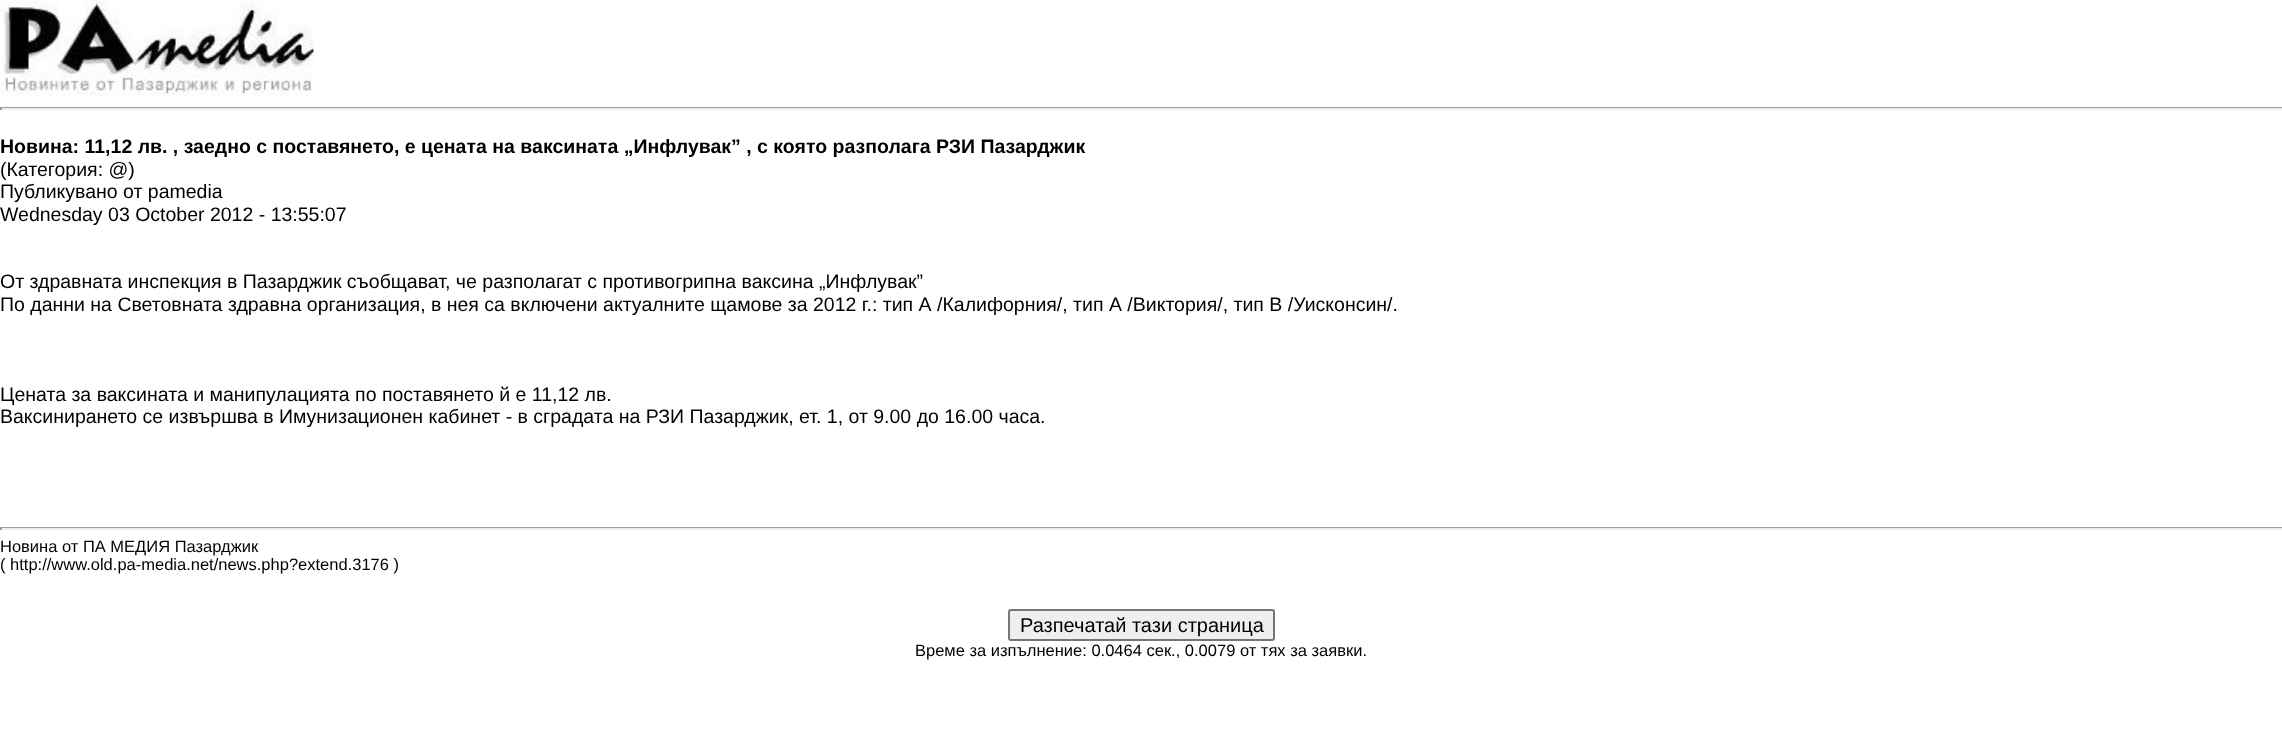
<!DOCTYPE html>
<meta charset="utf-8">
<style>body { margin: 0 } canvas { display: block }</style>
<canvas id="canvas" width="2282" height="739"></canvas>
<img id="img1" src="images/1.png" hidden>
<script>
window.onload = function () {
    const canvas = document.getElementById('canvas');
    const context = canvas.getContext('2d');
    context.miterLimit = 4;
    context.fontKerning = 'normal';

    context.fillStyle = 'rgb(255, 255, 255)';
    context.fillRect(0, 0, 2282, 739);
    context.drawImage(document.getElementById('img1'), 0, 0, 315, 96);
    context.fillStyle = 'rgb(159, 159, 159)';
    context.fillRect(0, 107, 2282, 1);
    context.fillStyle = 'rgb(238, 238, 238)';
    context.fillRect(0, 108, 2282, 2);
    context.fillStyle = 'rgb(159, 159, 159)';
    context.fillRect(0, 107, 2, 3);
    context.fillRect(0, 527, 2282, 1);
    context.fillStyle = 'rgb(238, 238, 238)';
    context.fillRect(0, 528, 2282, 2);
    context.fillStyle = 'rgb(159, 159, 159)';
    context.fillRect(0, 527, 2, 3);
    context.fillStyle = 'rgb(239, 239, 239)';
    context.beginPath();
    context.roundRect(1009, 610, 265, 30, 2);
    context.fill();
    context.strokeStyle = 'rgb(118, 118, 118)';
    context.lineWidth = 2;
    context.stroke();
    context.font = 'bold 19.5px Liberation Sans';
    context.fillStyle = 'rgb(0, 0, 0)';
    context.fillText('Новина: 11,12 лв. , заедно с поставянето, е цената на ваксината „Инфлувак” , с която разполага РЗИ Пазарджик', 0, 153);
    context.font = '19.5px Liberation Sans';
    context.fillText('(Категория: @)', 0, 176);
    context.fillText('Публикувано от pamedia', 0, 198);
    context.fillText('Wednesday 03 October 2012 - 13:55:07', 0, 221);
    context.fillText('От здравната инспекция в Пазарджик съобщават, че разполагат с противогрипна ваксина „Инфлувак”', 0, 288);
    context.fillText('По данни на Световната здравна организация, в нея са включени актуалните щамове за 2012 г.: тип А /Калифорния/, тип А /Виктория/, тип В /Уисконсин/.', 0, 311);
    context.fillText('Цената за ваксината и манипулацията по поставянето й е 11,12 лв.', 0, 401);
    context.fillText('Ваксинирането се извършва в Имунизационен кабинет - в сградата на РЗИ Пазарджик, ет. 1, от 9.00 до 16.00 часа. ', 0, 423);
    context.font = '16.5px Liberation Sans';
    context.fillText('Новина от ПА МЕДИЯ Пазарджик', 0, 552);
    context.fillText('( http://www.old.pa-media.net/news.php?extend.3176 )', 0, 570);
    context.font = '20px Liberation Sans';
    context.fillText('Разпечатай тази страница', 1020, 632);
    context.font = '16.5px Liberation Sans';
    context.fillText('Време за изпълнение: 0.0464 сек., 0.0079 от тях за заявки.', 915, 656);
};
</script>
